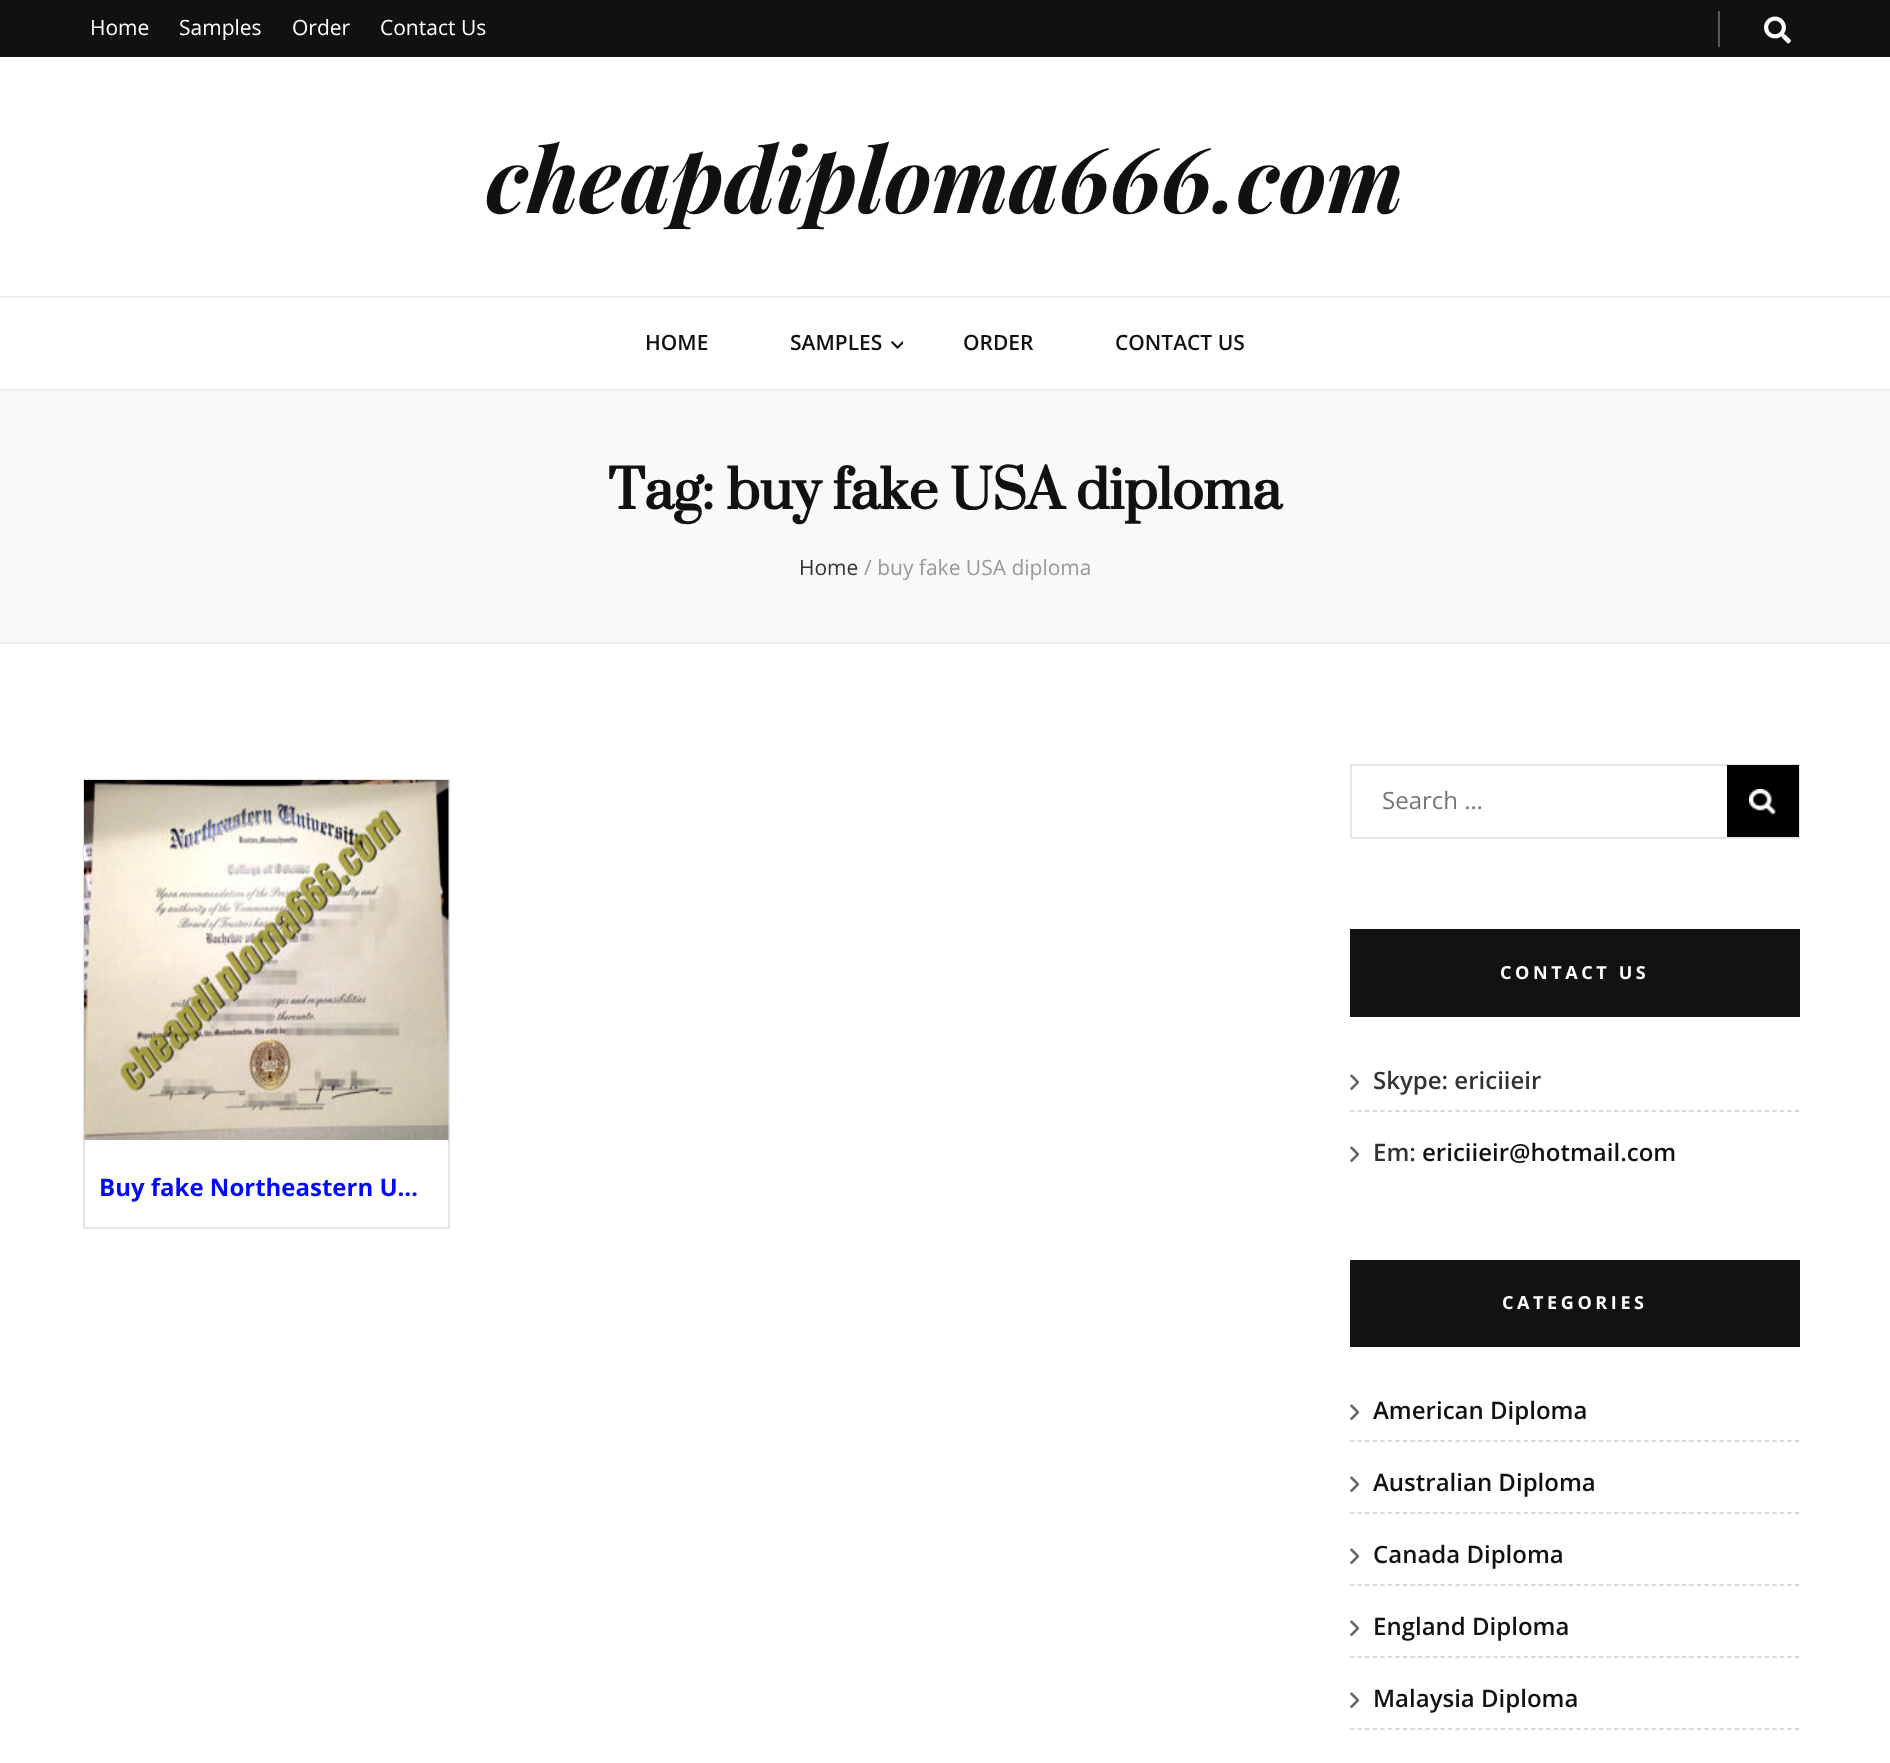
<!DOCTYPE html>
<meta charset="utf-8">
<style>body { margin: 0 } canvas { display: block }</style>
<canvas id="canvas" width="1890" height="1763"></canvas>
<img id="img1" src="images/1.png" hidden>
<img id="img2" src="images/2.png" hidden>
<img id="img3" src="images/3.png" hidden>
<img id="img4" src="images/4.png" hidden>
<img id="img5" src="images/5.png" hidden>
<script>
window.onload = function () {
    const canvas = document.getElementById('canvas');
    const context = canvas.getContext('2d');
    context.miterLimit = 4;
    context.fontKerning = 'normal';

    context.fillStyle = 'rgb(255, 255, 255)';
    context.fillRect(0, 0, 1890, 1763);
    context.fillStyle = 'rgb(17, 17, 17)';
    context.fillRect(0, 0, 1890, 57);
    context.fillStyle = 'rgb(89, 89, 89)';
    context.fillRect(1718, 11, 2, 36);
    context.drawImage(document.getElementById('img1'), 1764, 16, 27, 28);
    context.fillStyle = 'rgb(238, 238, 238)';
    context.fillRect(0, 296, 1890, 2);
    context.fillRect(0, 389, 1890, 2);
    context.drawImage(document.getElementById('img2'), 891, 341, 12, 8);
    context.fillStyle = 'rgb(249, 249, 249)';
    context.fillRect(0, 391, 1890, 251);
    context.fillStyle = 'rgb(238, 238, 238)';
    context.fillRect(0, 642, 1890, 2);
    context.strokeStyle = 'rgb(228, 228, 228)';
    context.lineWidth = 2;
    context.strokeRect(84, 780, 365, 448);
    context.drawImage(document.getElementById('img3'), 84, 780, 365, 360);
    context.strokeStyle = 'rgb(229, 229, 229)';
    context.strokeRect(1351, 765, 448, 73);
    context.fillStyle = 'rgb(0, 0, 0)';
    context.fillRect(1727, 765, 72, 72);
    context.drawImage(document.getElementById('img4'), 1749, 789, 27, 26);
    context.fillStyle = 'rgb(18, 18, 18)';
    context.fillRect(1350, 929, 450, 88);
    context.beginPath();
    context.moveTo(1350, 1111);
    context.lineTo(1800, 1111);
    context.strokeStyle = 'rgb(206, 206, 206)';
    context.lineWidth = 1.5;
    context.setLineDash([4.5, 3.04]);
    context.stroke();
    context.drawImage(document.getElementById('img5'), 1350, 1074, 9, 17);
    context.drawImage(document.getElementById('img5'), 1350, 1146, 9, 17);
    context.fillRect(1350, 1260, 450, 87);
    context.beginPath();
    context.moveTo(1350, 1441);
    context.lineTo(1800, 1441);
    context.stroke();
    context.drawImage(document.getElementById('img5'), 1350, 1404, 9, 17);
    context.beginPath();
    context.moveTo(1350, 1513);
    context.lineTo(1800, 1513);
    context.stroke();
    context.drawImage(document.getElementById('img5'), 1350, 1476, 9, 17);
    context.beginPath();
    context.moveTo(1350, 1585);
    context.lineTo(1800, 1585);
    context.stroke();
    context.drawImage(document.getElementById('img5'), 1350, 1548, 9, 17);
    context.beginPath();
    context.moveTo(1350, 1657);
    context.lineTo(1800, 1657);
    context.stroke();
    context.drawImage(document.getElementById('img5'), 1350, 1620, 9, 17);
    context.beginPath();
    context.moveTo(1350, 1729);
    context.lineTo(1800, 1729);
    context.stroke();
    context.drawImage(document.getElementById('img5'), 1350, 1692, 9, 17);
    context.font = '21px Open Sans';
    context.fillStyle = 'rgb(255, 255, 255)';
    context.fillText('Home', 90, 35);
    context.fillText('Samples', 179, 35);
    context.fillText('Order', 292, 35);
    context.fillText('Contact Us', 380, 35);
    context.font = 'italic bold 90px Playfair Display';
    context.fillStyle = 'rgb(17, 17, 17)';
    context.fillText('cheapdiploma666.com', 486, 213);
    context.font = '600 21px Open Sans';
    context.fillText('HOME', 645, 350);
    context.fillText('SAMPLES', 790, 350);
    context.fillText('ORDER', 963, 350);
    context.fillText('CONTACT US', 1115, 350);
    context.font = 'bold 66px Suranna';
    context.fillText('Tag: buy fake USA diploma', 608, 509);
    context.font = '21px Open Sans';
    context.fillStyle = 'rgb(51, 51, 51)';
    context.fillText('Home', 799, 575);
    context.fillStyle = 'rgb(153, 153, 153)';
    context.fillText('/ buy fake USA diploma', 864, 575);
    context.font = 'bold 24px Open Sans';
    context.fillStyle = 'rgb(2, 10, 247)';
    context.fillText('Buy fake Northeastern U…', 99, 1196);
    context.font = '24px Open Sans';
    context.fillStyle = 'rgb(117, 117, 117)';
    context.fillText('Search …', 1382, 809);
    context.letterSpacing = '3.6px';
    context.font = 'bold 18px Open Sans';
    context.fillStyle = 'rgb(255, 255, 255)';
    context.fillText('CONTACT US', 1500, 979);
    context.letterSpacing = '0px';
    context.font = '600 24px Open Sans';
    context.fillStyle = 'rgb(51, 51, 51)';
    context.fillText('Skype: ericiieir', 1373, 1089);
    context.fillText('Em:', 1373, 1161);
    context.fillStyle = 'rgb(17, 17, 17)';
    context.fillText('ericiieir@hotmail.com', 1422, 1161);
    context.letterSpacing = '3.6px';
    context.font = 'bold 18px Open Sans';
    context.fillStyle = 'rgb(255, 255, 255)';
    context.fillText('CATEGORIES', 1502, 1309);
    context.letterSpacing = '0px';
    context.font = '600 24px Open Sans';
    context.fillStyle = 'rgb(17, 17, 17)';
    context.fillText('American Diploma', 1373, 1419);
    context.fillText('Australian Diploma', 1373, 1491);
    context.fillText('Canada Diploma', 1373, 1563);
    context.fillText('England Diploma', 1373, 1635);
    context.fillText('Malaysia Diploma', 1373, 1707);
};
</script>
